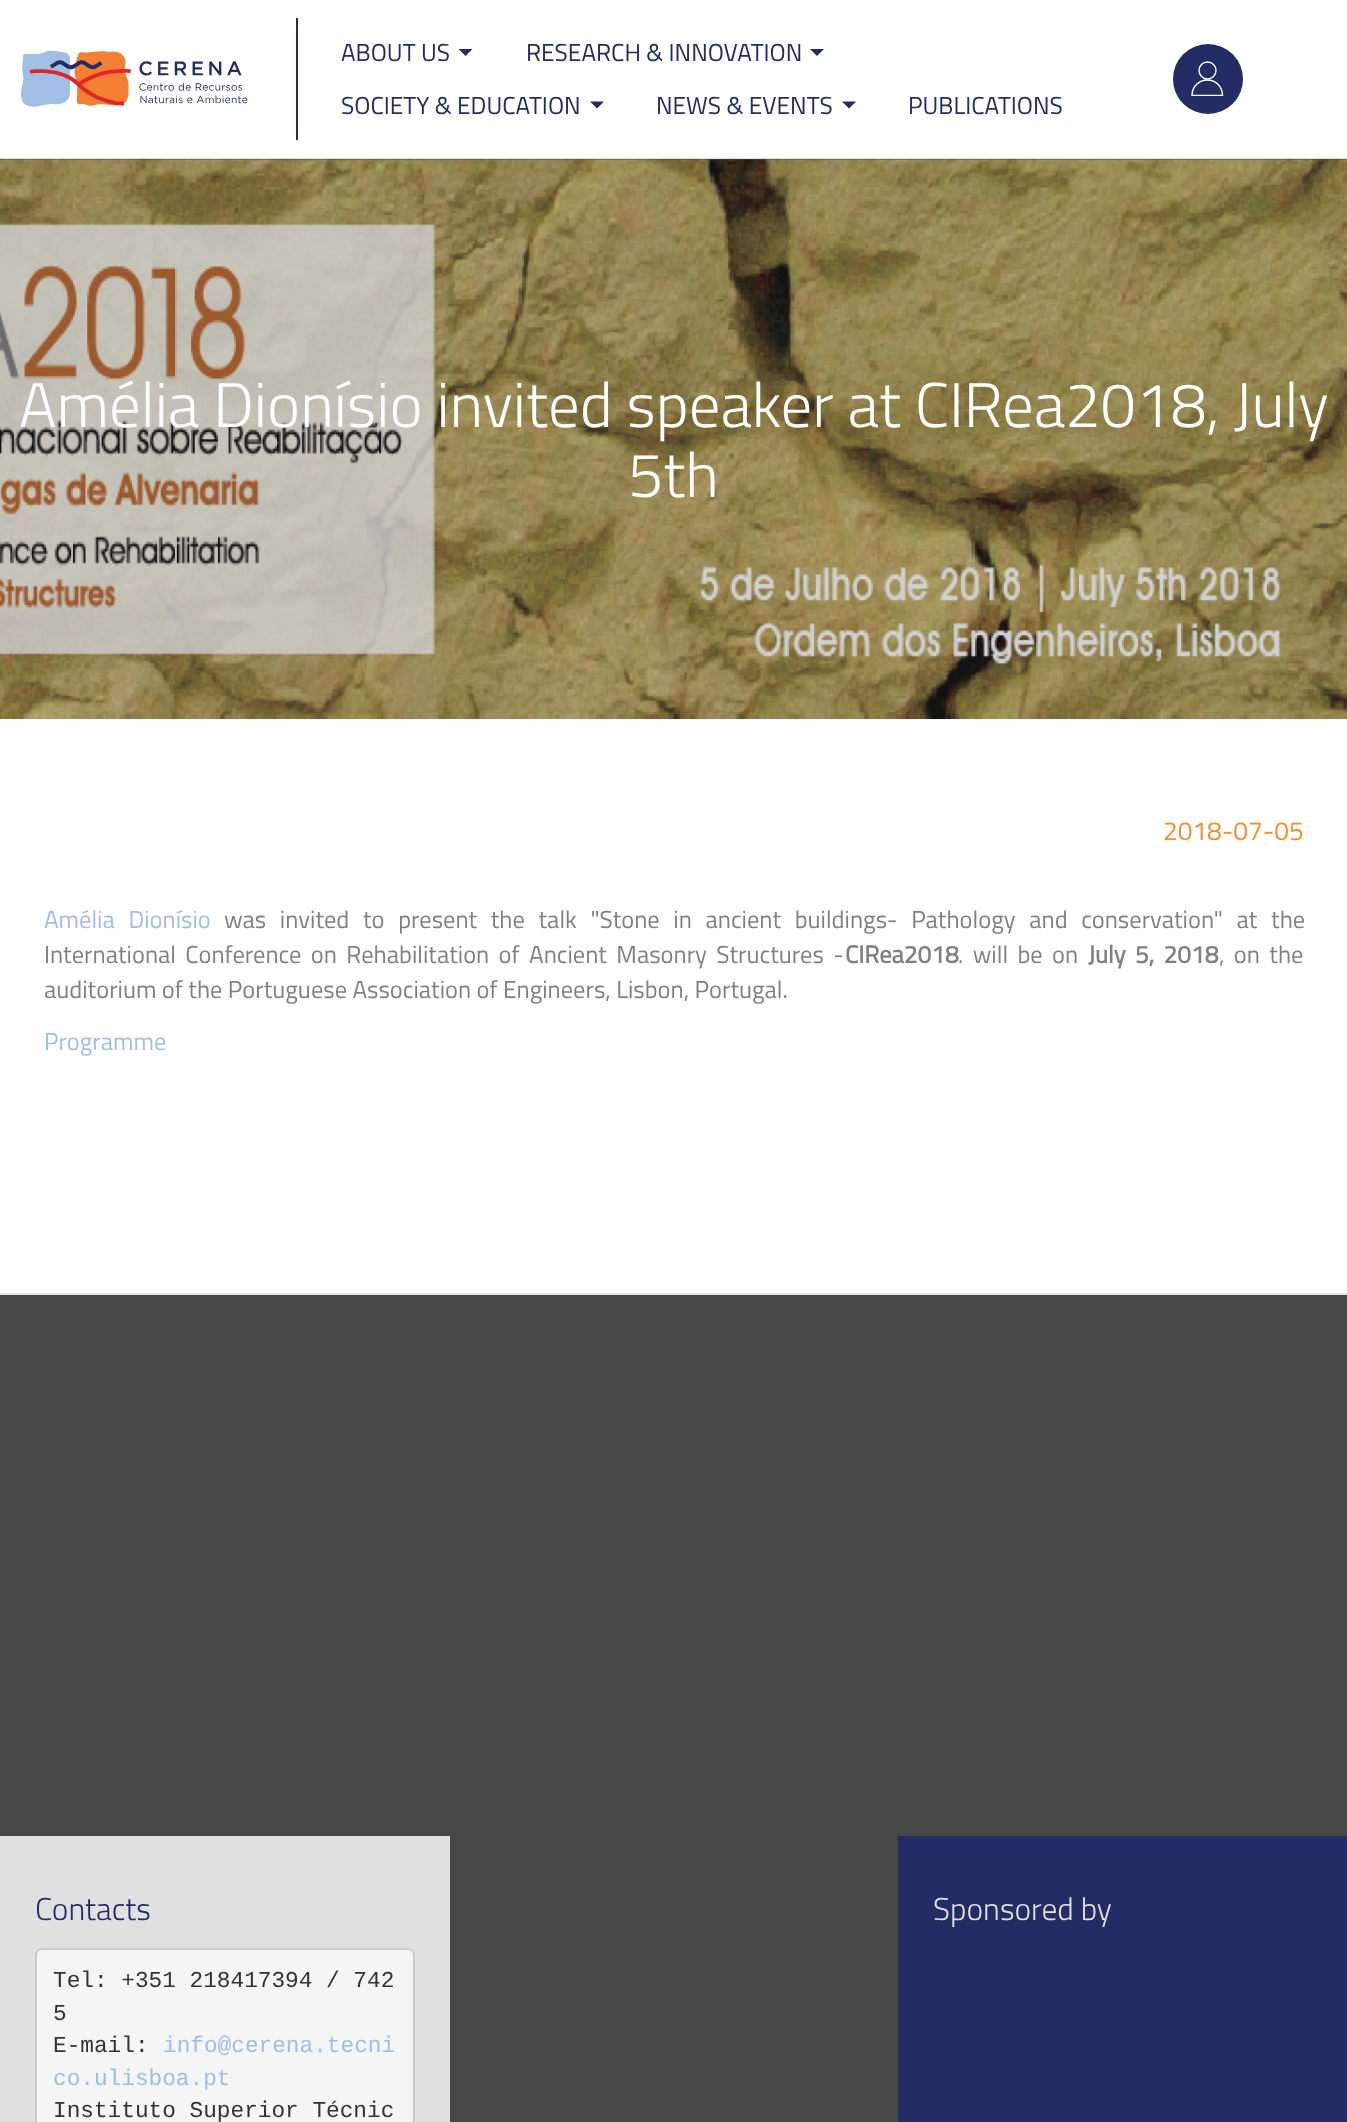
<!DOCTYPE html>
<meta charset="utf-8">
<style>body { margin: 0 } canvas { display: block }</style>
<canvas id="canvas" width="1347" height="2122"></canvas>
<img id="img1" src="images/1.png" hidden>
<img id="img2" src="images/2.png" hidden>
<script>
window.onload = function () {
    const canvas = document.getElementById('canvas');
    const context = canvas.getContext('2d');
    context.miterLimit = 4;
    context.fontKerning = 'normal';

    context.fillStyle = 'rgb(255, 255, 255)';
    context.fillRect(0, 0, 1347, 2122);
    context.fillStyle = 'rgb(35, 44, 101)';
    context.fillRect(296, 18, 2, 122);
    context.beginPath();
    context.moveTo(458.5, 49);
    context.lineTo(472.5, 49);
    context.lineTo(465.5, 56);
    context.closePath();
    context.fill();
    context.beginPath();
    context.moveTo(810, 49);
    context.lineTo(824, 49);
    context.lineTo(817, 56);
    context.closePath();
    context.fill();
    context.beginPath();
    context.moveTo(590, 101.5);
    context.lineTo(604, 101.5);
    context.lineTo(597, 108.5);
    context.closePath();
    context.fill();
    context.beginPath();
    context.moveTo(842, 101.5);
    context.lineTo(856, 101.5);
    context.lineTo(849, 108.5);
    context.closePath();
    context.fill();
    context.drawImage(document.getElementById('img1'), 20, 50, 228, 57);
    context.beginPath();
    context.arc(1208, 79, 35, 0, 2 * Math.PI);
    context.fill();
    context.beginPath();
    context.arc(1207.5, 70.5, 8.5, 0, 2 * Math.PI);
    context.strokeStyle = 'rgb(255, 255, 255)';
    context.lineWidth = 1.4;
    context.stroke();
    context.save();
    context.beginPath();
    context.rect(1190, 61, 35, 35);
    context.clip();
    context.beginPath();
    context.moveTo(1222.5, 95.5);
    context.bezierCurveTo(1222.5, 87, 1216, 80, 1207.5, 80);
    context.bezierCurveTo(1198.5, 80, 1192, 87, 1192, 95.5);
    context.closePath();
    context.stroke();
    context.restore();
    context.fillStyle = 'rgb(224, 224, 224)';
    context.fillRect(0, 158, 1347, 1);
    context.fillStyle = 'rgb(71, 71, 71)';
    context.fillRect(0, 159, 1347, 560);
    context.drawImage(document.getElementById('img2'), 0, 159, 1347, 561);
    context.fillRect(0, 1295, 1347, 827);
    context.fillStyle = 'rgb(229, 229, 229)';
    context.fillRect(0, 1293, 1347, 2);
    context.fillStyle = 'rgb(224, 224, 224)';
    context.fillRect(0, 1836, 450, 286);
    context.fillStyle = 'rgb(245, 245, 245)';
    context.beginPath();
    context.roundRect(36, 1949, 378, 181, 6);
    context.fill();
    context.strokeStyle = 'rgb(204, 204, 204)';
    context.lineWidth = 2;
    context.stroke();
    context.fillStyle = 'rgb(35, 44, 101)';
    context.fillRect(898, 1836, 449, 286);
    context.font = '24.5px Titillium Web';
    context.fillText('ABOUT US', 341, 61);
    context.fillText('RESEARCH & INNOVATION', 526, 61);
    context.fillText('SOCIETY & EDUCATION', 341, 114);
    context.fillText('NEWS & EVENTS', 656, 114);
    context.fillText('PUBLICATIONS', 908, 114);
    context.font = '300 63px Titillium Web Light';
    context.fillStyle = 'rgb(255, 255, 255)';
    context.fillText('Amélia Dionísio invited speaker at CIRea2018, July', 19, 427);
    context.fillText('5th', 628, 497);
    context.font = '26.25px Titillium Web';
    context.fillStyle = 'rgb(247, 141, 45)';
    context.fillText('2018-07-05', 1163, 840);
    context.wordSpacing = '8.25px';
    context.font = '24.5px Titillium Web';
    context.fillStyle = 'rgb(161, 189, 227)';
    context.fillText('Amélia Dionísio', 44, 928);
    context.fillStyle = 'rgb(128, 128, 128)';
    context.fillText('was invited to present the talk "Stone in ancient buildings- Pathology and conservation" at the', 224, 928);
    context.wordSpacing = '4px';
    context.fillText('International Conference on Rehabilitation of Ancient Masonry Structures -', 44, 963);
    context.wordSpacing = '0px';
    context.font = 'bold 24.5px Titillium Web';
    context.fillText('CIRea2018', 845, 963);
    context.wordSpacing = '4px';
    context.font = '24.5px Titillium Web';
    context.fillText('. will be on', 958, 963);
    context.font = 'bold 24.5px Titillium Web';
    context.fillText('July 5, 2018', 1088, 963);
    context.font = '24.5px Titillium Web';
    context.fillText(', on the', 1219, 963);
    context.wordSpacing = '0px';
    context.fillText('auditorium of the Portuguese Association of Engineers, Lisbon, Portugal.', 44, 998);
    context.fillStyle = 'rgb(161, 189, 227)';
    context.fillText('Programme', 44, 1050);
    context.font = '300 31.5px Titillium Web Light';
    context.fillStyle = 'rgb(35, 44, 101)';
    context.fillText('Contacts', 35, 1920);
    context.font = '22.75px Liberation Mono';
    context.fillStyle = 'rgb(51, 51, 51)';
    context.fillText('Tel: +351 218417394 / 742', 53, 1987);
    context.fillText('5', 53, 2020);
    context.fillText('E-mail:', 53, 2052);
    context.fillStyle = 'rgb(161, 189, 227)';
    context.fillText('info@cerena.tecni', 163, 2052);
    context.fillText('co.ulisboa.pt', 53, 2085);
    context.fillStyle = 'rgb(51, 51, 51)';
    context.fillText('Instituto Superior Técnic', 53, 2117);
    context.font = '300 31.5px Titillium Web Light';
    context.fillStyle = 'rgb(224, 224, 224)';
    context.fillText('Sponsored by', 933, 1920);
};
</script>
